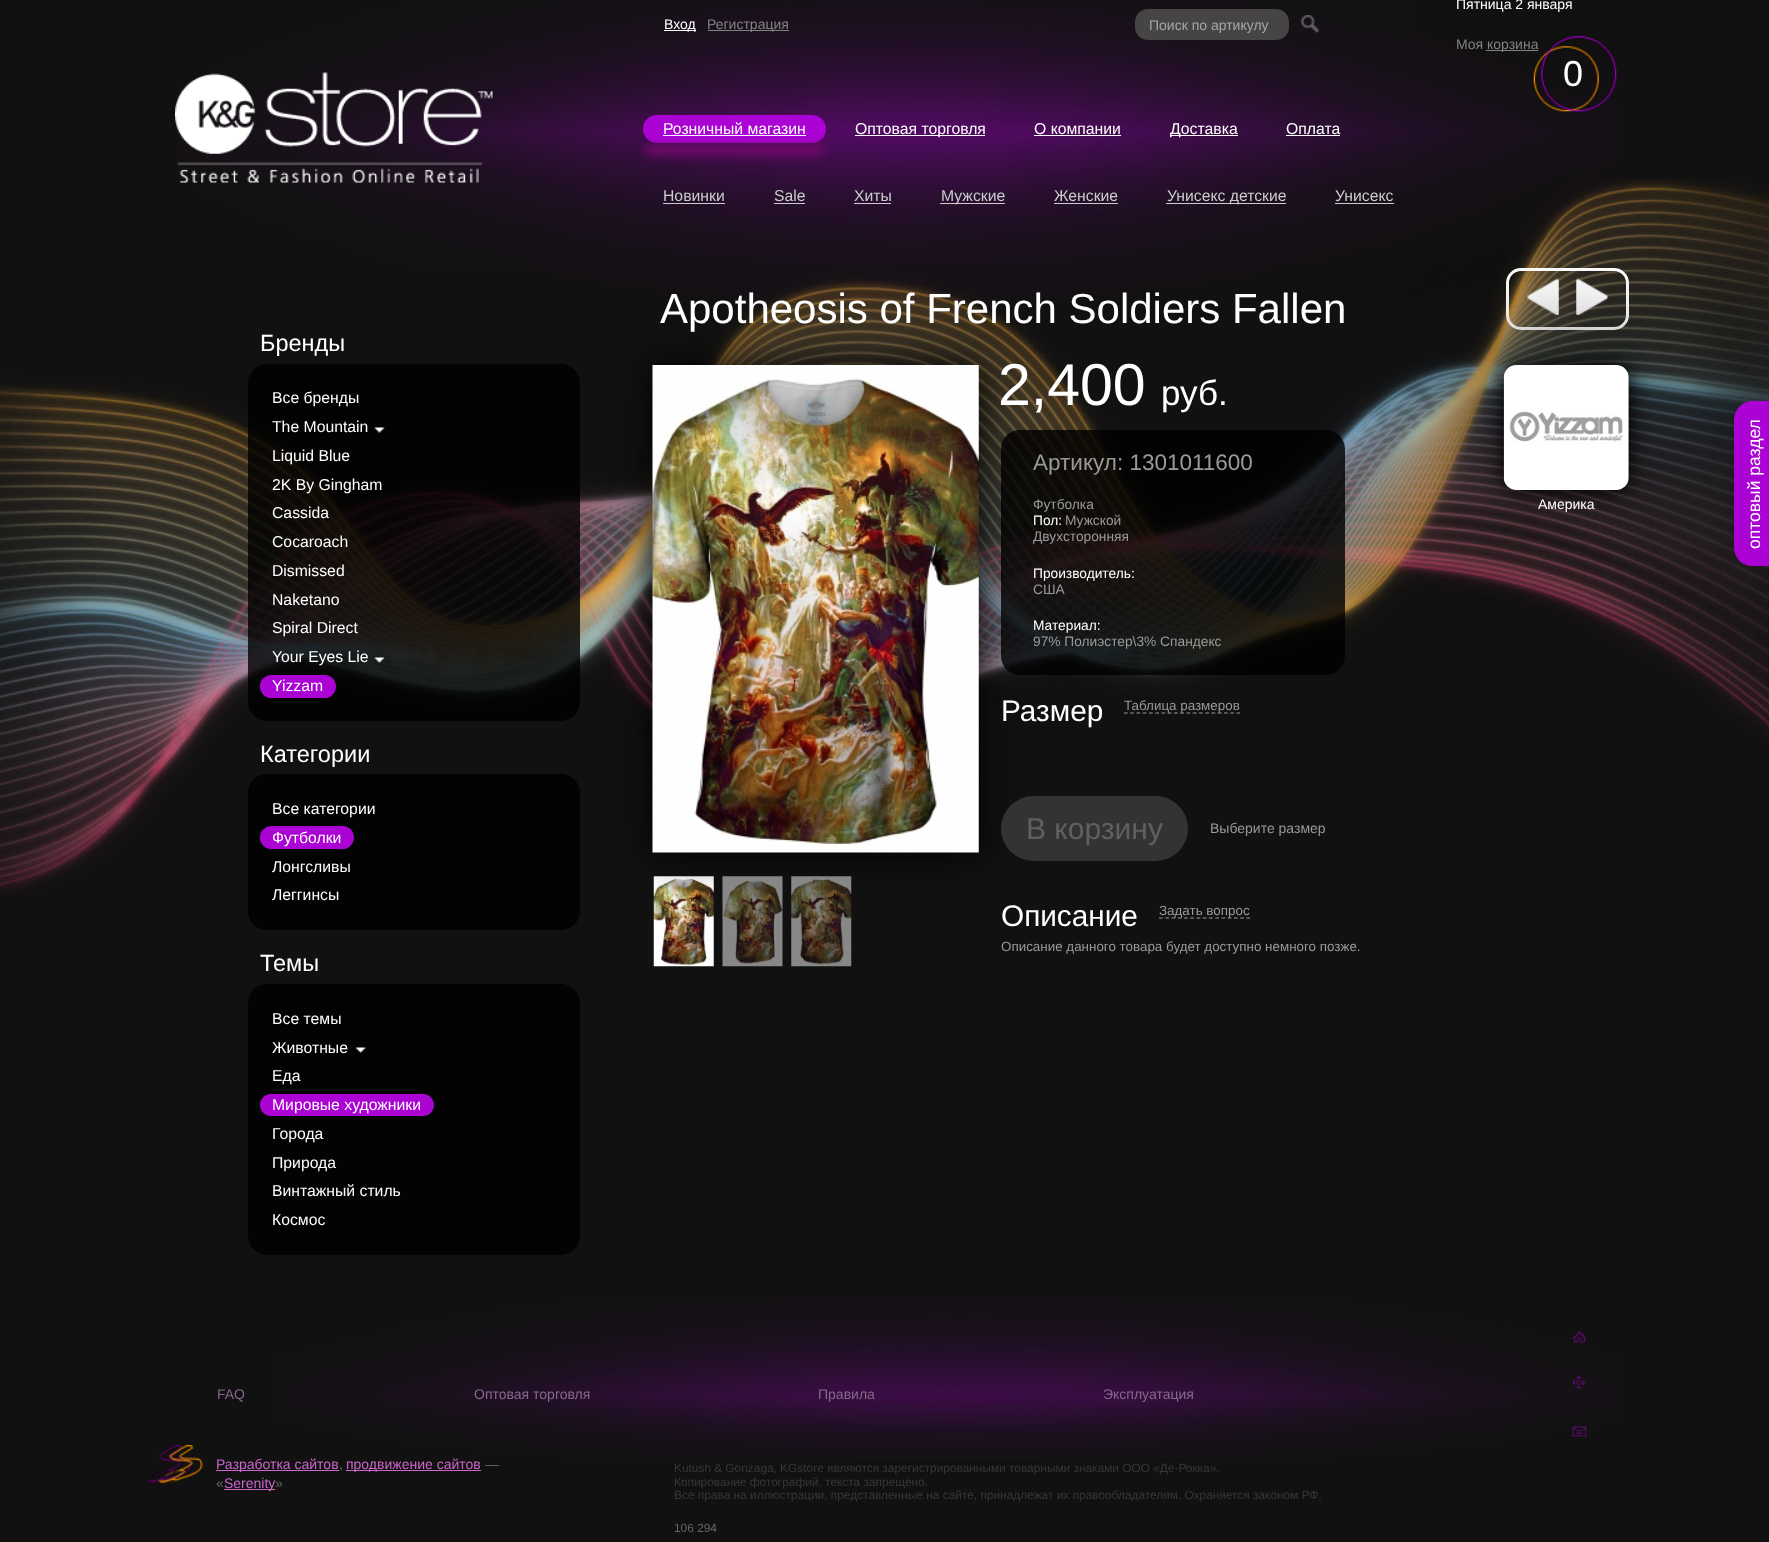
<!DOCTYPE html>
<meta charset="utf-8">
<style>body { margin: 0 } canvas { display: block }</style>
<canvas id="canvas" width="1769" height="1542"></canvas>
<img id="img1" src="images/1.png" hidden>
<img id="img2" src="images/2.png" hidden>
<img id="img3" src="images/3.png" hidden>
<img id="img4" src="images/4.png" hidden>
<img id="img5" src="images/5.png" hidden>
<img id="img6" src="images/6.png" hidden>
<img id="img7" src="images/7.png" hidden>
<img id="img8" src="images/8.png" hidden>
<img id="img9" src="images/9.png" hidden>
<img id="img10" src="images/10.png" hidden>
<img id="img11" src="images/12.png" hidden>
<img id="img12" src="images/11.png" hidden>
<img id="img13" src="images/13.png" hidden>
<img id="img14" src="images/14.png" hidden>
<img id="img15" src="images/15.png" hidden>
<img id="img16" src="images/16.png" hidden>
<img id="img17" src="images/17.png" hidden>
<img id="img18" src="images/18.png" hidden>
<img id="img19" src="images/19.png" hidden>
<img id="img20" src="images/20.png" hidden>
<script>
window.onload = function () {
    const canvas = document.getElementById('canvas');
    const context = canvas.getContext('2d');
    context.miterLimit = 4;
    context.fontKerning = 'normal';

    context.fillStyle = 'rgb(17, 17, 17)';
    context.fillRect(0, 0, 1769, 1542);
    context.drawImage(document.getElementById('img1'), 0, 179, 1769, 716);
    context.drawImage(document.getElementById('img2'), 177, 0, 1445, 301);
    context.drawImage(document.getElementById('img3'), 175, 72, 318, 111);
    context.fillStyle = 'rgb(255, 255, 255)';
    context.fillRect(664, 30, 32, 1);
    context.fillStyle = 'rgb(131, 130, 131)';
    context.fillRect(708, 30, 81, 1);
    context.fillStyle = 'rgb(71, 68, 70)';
    context.beginPath();
    context.roundRect(1135, 9, 154, 31, 13);
    context.fill();
    context.drawImage(document.getElementById('img4'), 1301, 15, 18, 18);
    context.drawImage(document.getElementById('img5'), 1533, 36, 84, 76);
    context.fillStyle = 'rgb(131, 130, 131)';
    context.fillRect(1486, 50, 52, 1);
    context.fillStyle = 'rgb(170, 3, 212)';
    context.beginPath();
    context.roundRect(643, 115, 183, 28, 14);
    context.fill();
    context.fillStyle = 'rgb(255, 255, 255)';
    context.fillRect(663, 135, 143, 1);
    context.fillStyle = 'rgba(120, 9, 112, 0.8)';
    context.filter = 'blur(4px)';
    context.beginPath();
    context.roundRect(644, 144, 181, 12, 13);
    context.fill();
    context.filter = 'none';
    context.fillStyle = 'rgb(255, 255, 255)';
    context.fillRect(855, 135, 130, 1);
    context.fillRect(1034, 135, 87, 1);
    context.fillRect(1170, 135, 68, 1);
    context.fillRect(1286, 135, 54, 1);
    context.fillStyle = 'rgb(204, 204, 204)';
    context.fillRect(663, 203, 62, 1);
    context.fillRect(774, 203, 31, 1);
    context.fillRect(854, 203, 37, 1);
    context.fillRect(940, 203, 65, 1);
    context.fillRect(1054, 203, 64, 1);
    context.fillRect(1166, 203, 120, 1);
    context.fillRect(1335, 203, 59, 1);
    context.beginPath();
    context.roundRect(1507.5, 269.5, 120, 59, 13.5);
    context.strokeStyle = 'rgb(255, 255, 255)';
    context.lineWidth = 3;
    context.stroke();
    context.drawImage(document.getElementById('img6'), 1527, 278, 32, 37);
    context.drawImage(document.getElementById('img7'), 1576, 278, 32, 37);
    context.fillStyle = 'rgba(0, 0, 0, 0.8)';
    context.beginPath();
    context.roundRect(248, 364, 332, 357, 19);
    context.fill();
    context.drawImage(document.getElementById('img8'), 373, 427, 12, 6);
    context.drawImage(document.getElementById('img9'), 373, 657, 12, 6);
    context.fillStyle = 'rgb(170, 3, 212)';
    context.beginPath();
    context.roundRect(260, 675, 76, 23, 11.5);
    context.fill();
    context.fillStyle = 'rgb(3, 3, 3)';
    context.beginPath();
    context.roundRect(248, 774, 332, 156, 19);
    context.fill();
    context.fillStyle = 'rgb(170, 3, 212)';
    context.beginPath();
    context.roundRect(260, 826, 94, 23, 11.5);
    context.fill();
    context.fillStyle = 'rgb(3, 3, 3)';
    context.beginPath();
    context.roundRect(248, 984, 332, 271, 19);
    context.fill();
    context.drawImage(document.getElementById('img10'), 355, 1047, 12, 6);
    context.fillStyle = 'rgb(170, 3, 212)';
    context.beginPath();
    context.roundRect(260, 1094, 174, 22, 11);
    context.fill();
    context.drawImage(document.getElementById('img11'), 653, 876, 61, 91);
    context.fillStyle = 'rgb(0, 0, 0)';
    context.filter = 'blur(19px)';
    context.beginPath();
    context.rect(653, 365, 326, 488);
    context.fill();
    context.filter = 'none';
    context.drawImage(document.getElementById('img12'), 652, 365, 327, 488);
    context.drawImage(document.getElementById('img13'), 722, 876, 61, 91);
    context.drawImage(document.getElementById('img14'), 791, 876, 61, 91);
    context.fillStyle = 'rgba(0, 0, 0, 0.8)';
    context.beginPath();
    context.roundRect(1001, 430, 344, 245, 19);
    context.fill();
    context.beginPath();
    context.moveTo(1124, 713);
    context.lineTo(1240, 713);
    context.strokeStyle = 'rgb(153, 153, 153)';
    context.lineWidth = 1.2;
    context.setLineDash([3.75, 2.5]);
    context.stroke();
    context.fillStyle = 'rgb(51, 51, 51)';
    context.beginPath();
    context.roundRect(1001, 796, 187, 65, 32.5);
    context.fill();
    context.beginPath();
    context.moveTo(1159, 918);
    context.lineTo(1250, 918);
    context.stroke();
    context.fillStyle = 'rgb(0, 0, 0)';
    context.filter = 'blur(56px)';
    context.beginPath();
    context.roundRect(1504, 365, 125, 125, 19);
    context.fill();
    context.filter = 'none';
    context.filter = 'blur(9.5px)';
    context.beginPath();
    context.roundRect(1504, 365, 125, 125, 13);
    context.fill();
    context.filter = 'none';
    context.drawImage(document.getElementById('img15'), 1503, 365, 126, 125);
    context.drawImage(document.getElementById('img16'), 276, 1297, 1346, 162);
    context.drawImage(document.getElementById('img17'), 1572, 1331, 15, 12);
    context.drawImage(document.getElementById('img18'), 1572, 1376, 14, 13);
    context.drawImage(document.getElementById('img19'), 1572, 1426, 15, 11);
    context.drawImage(document.getElementById('img20'), 147, 1445, 57, 39);
    context.fillStyle = 'rgb(204, 102, 204)';
    context.fillRect(216, 1470, 123, 1);
    context.fillRect(346, 1470, 135, 1);
    context.fillRect(224, 1489, 51, 1);
    context.fillStyle = 'rgb(170, 3, 212)';
    context.beginPath();
    context.moveTo(1734, 547);
    context.lineTo(1734, 420);
    context.bezierCurveTo(1734, 410, 1742, 401, 1752, 401);
    context.lineTo(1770, 401);
    context.lineTo(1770, 566);
    context.lineTo(1752, 566);
    context.bezierCurveTo(1742, 566, 1734, 558, 1734, 547);
    context.closePath();
    context.fill();
    context.font = '14px Liberation Sans';
    context.fillStyle = 'rgb(255, 255, 255)';
    context.fillText('Вход', 664, 29);
    context.fillStyle = 'rgb(131, 130, 131)';
    context.fillText('Регистрация', 707, 29);
    context.fillStyle = 'rgb(168, 166, 168)';
    context.fillText('Поиск по артикулу', 1149, 30);
    context.fillStyle = 'rgb(255, 255, 255)';
    context.fillText('Пятница 2 января', 1456, 9);
    context.fillStyle = 'rgb(131, 130, 131)';
    context.fillText('Моя', 1456, 49);
    context.fillText('корзина', 1487, 49);
    context.font = '36px Liberation Sans';
    context.fillStyle = 'rgb(255, 255, 255)';
    context.fillText('0', 1563, 86);
    context.font = '15.75px Liberation Sans';
    context.fillText('Розничный магазин', 663, 134);
    context.fillText('Оптовая торговля', 855, 134);
    context.fillText('О компании', 1034, 134);
    context.fillText('Доставка', 1170, 134);
    context.fillText('Оплата', 1286, 134);
    context.fillStyle = 'rgb(204, 204, 204)';
    context.fillText('Новинки', 663, 201);
    context.fillText('Sale', 774, 201);
    context.fillText('Хиты', 854, 201);
    context.fillText('Мужские', 941, 201);
    context.fillText('Женские', 1054, 201);
    context.fillText('Унисекс детские', 1167, 201);
    context.fillText('Унисекс', 1335, 201);
    context.font = '42px Liberation Sans';
    context.fillStyle = 'rgb(255, 255, 255)';
    context.fillText('Apotheosis of French Soldiers Fallen', 660, 323);
    context.font = '23.5px Liberation Sans';
    context.fillText('Бренды', 260, 351);
    context.font = '15.75px Liberation Sans';
    context.fillText('Все бренды', 272, 403);
    context.fillText('The Mountain', 272, 432);
    context.fillText('Liquid Blue', 272, 461);
    context.fillText('2K By Gingham', 272, 490);
    context.fillText('Cassida', 272, 518);
    context.fillText('Cocaroach', 272, 547);
    context.fillText('Dismissed', 272, 576);
    context.fillText('Naketano', 272, 605);
    context.fillText('Spiral Direct', 272, 633);
    context.fillText('Your Eyes Lie', 272, 662);
    context.fillText('Yizzam', 272, 691);
    context.font = '23.5px Liberation Sans';
    context.fillText('Категории', 260, 762);
    context.font = '15.75px Liberation Sans';
    context.fillText('Все категории', 272, 814);
    context.fillText('Футболки', 272, 843);
    context.fillText('Лонгсливы', 272, 872);
    context.fillText('Леггинсы', 272, 900);
    context.font = '23.5px Liberation Sans';
    context.fillText('Темы', 260, 971);
    context.font = '15.75px Liberation Sans';
    context.fillText('Все темы', 272, 1024);
    context.fillText('Животные', 272, 1053);
    context.fillText('Еда', 272, 1081);
    context.fillText('Мировые художники', 272, 1110);
    context.fillText('Города', 272, 1139);
    context.fillText('Природа', 272, 1168);
    context.fillText('Винтажный стиль', 272, 1196);
    context.fillText('Космос', 272, 1225);
    context.font = '59px Liberation Sans';
    context.fillText('2,400', 998, 405);
    context.font = '35px Liberation Sans';
    context.fillText('руб.', 1161, 405);
    context.font = '22.5px Liberation Sans';
    context.fillStyle = 'rgb(153, 153, 153)';
    context.fillText('Артикул: 1301011600', 1033, 470);
    context.font = '13.75px Liberation Sans';
    context.fillText('Футболка', 1033, 509);
    context.fillStyle = 'rgb(255, 255, 255)';
    context.fillText('Пол:', 1033, 525);
    context.fillStyle = 'rgb(153, 153, 153)';
    context.fillText('Мужской', 1065, 525);
    context.fillText('Двухсторонняя', 1033, 541);
    context.fillStyle = 'rgb(255, 255, 255)';
    context.fillText('Производитель:', 1033, 578);
    context.fillStyle = 'rgb(153, 153, 153)';
    context.fillText('США', 1033, 594);
    context.fillStyle = 'rgb(255, 255, 255)';
    context.fillText('Материал:', 1033, 630);
    context.fillStyle = 'rgb(153, 153, 153)';
    context.fillText('97% Полиэстер\\3% Спандекс', 1033, 646);
    context.font = '29.75px Liberation Sans';
    context.fillStyle = 'rgb(255, 255, 255)';
    context.fillText('Размер', 1001, 721);
    context.font = '13.4px Liberation Sans';
    context.fillStyle = 'rgb(153, 153, 153)';
    context.fillText('Таблица размеров', 1124, 710);
    context.font = '30px Liberation Sans';
    context.fillStyle = 'rgb(96, 96, 96)';
    context.fillText('В корзину', 1026, 839);
    context.font = '14px Liberation Sans';
    context.fillStyle = 'rgb(153, 153, 153)';
    context.fillText('Выберите размер', 1210, 833);
    context.font = '29.75px Liberation Sans';
    context.fillStyle = 'rgb(255, 255, 255)';
    context.fillText('Описание', 1001, 926);
    context.font = '13.4px Liberation Sans';
    context.fillStyle = 'rgb(153, 153, 153)';
    context.fillText('Задать вопрос', 1159, 915);
    context.fillText('Описание данного товара будет доступно немного позже.', 1001, 951);
    context.font = '14px Liberation Sans';
    context.fillStyle = 'rgb(255, 255, 255)';
    context.fillText('Америка', 1538, 509);
    context.fillStyle = 'rgb(134, 106, 140)';
    context.fillText('FAQ', 217, 1399);
    context.fillText('Оптовая торговля', 474, 1399);
    context.fillText('Правила', 818, 1399);
    context.fillText('Эксплуатация', 1103, 1399);
    context.fillStyle = 'rgb(204, 102, 204)';
    context.fillText('Разработка сайтов', 216, 1469);
    context.fillText('продвижение сайтов', 346, 1469);
    context.fillStyle = 'rgb(102, 102, 102)';
    context.fillText('—', 485, 1469);
    context.fillText(',', 339, 1469);
    context.fillText('«', 216, 1488);
    context.fillStyle = 'rgb(204, 102, 204)';
    context.fillText('Serenity', 224, 1488);
    context.fillStyle = 'rgb(102, 102, 102)';
    context.fillText('»', 275, 1488);
    context.wordSpacing = '-0.1px';
    context.font = '11.9px Liberation Sans';
    context.fillStyle = 'rgb(55, 55, 55)';
    context.fillText('Kutush & Gonzaga, KGstore являются зарегистрированными товарными знаками ООО «Де-Рокка».', 674, 1472);
    context.wordSpacing = '0px';
    context.fillText('Копирование фотографий, текста запрещено.', 674, 1486);
    context.fillText('Все права на иллюстрации, представленные на сайте, принадлежат их правообладателям. Охраняется законом РФ.', 674, 1499);
    context.fillStyle = 'rgb(102, 102, 102)';
    context.fillText('106 294', 674, 1532);
    context.font = '17.5px Liberation Sans';
    context.fillStyle = 'rgb(255, 255, 255)';
    context.save();
    context.translate(1760, 549);
    context.rotate(-90 * Math.PI / 180);
    context.fillText('оптовый раздел', 0, 0);
    context.restore();
};
</script>
